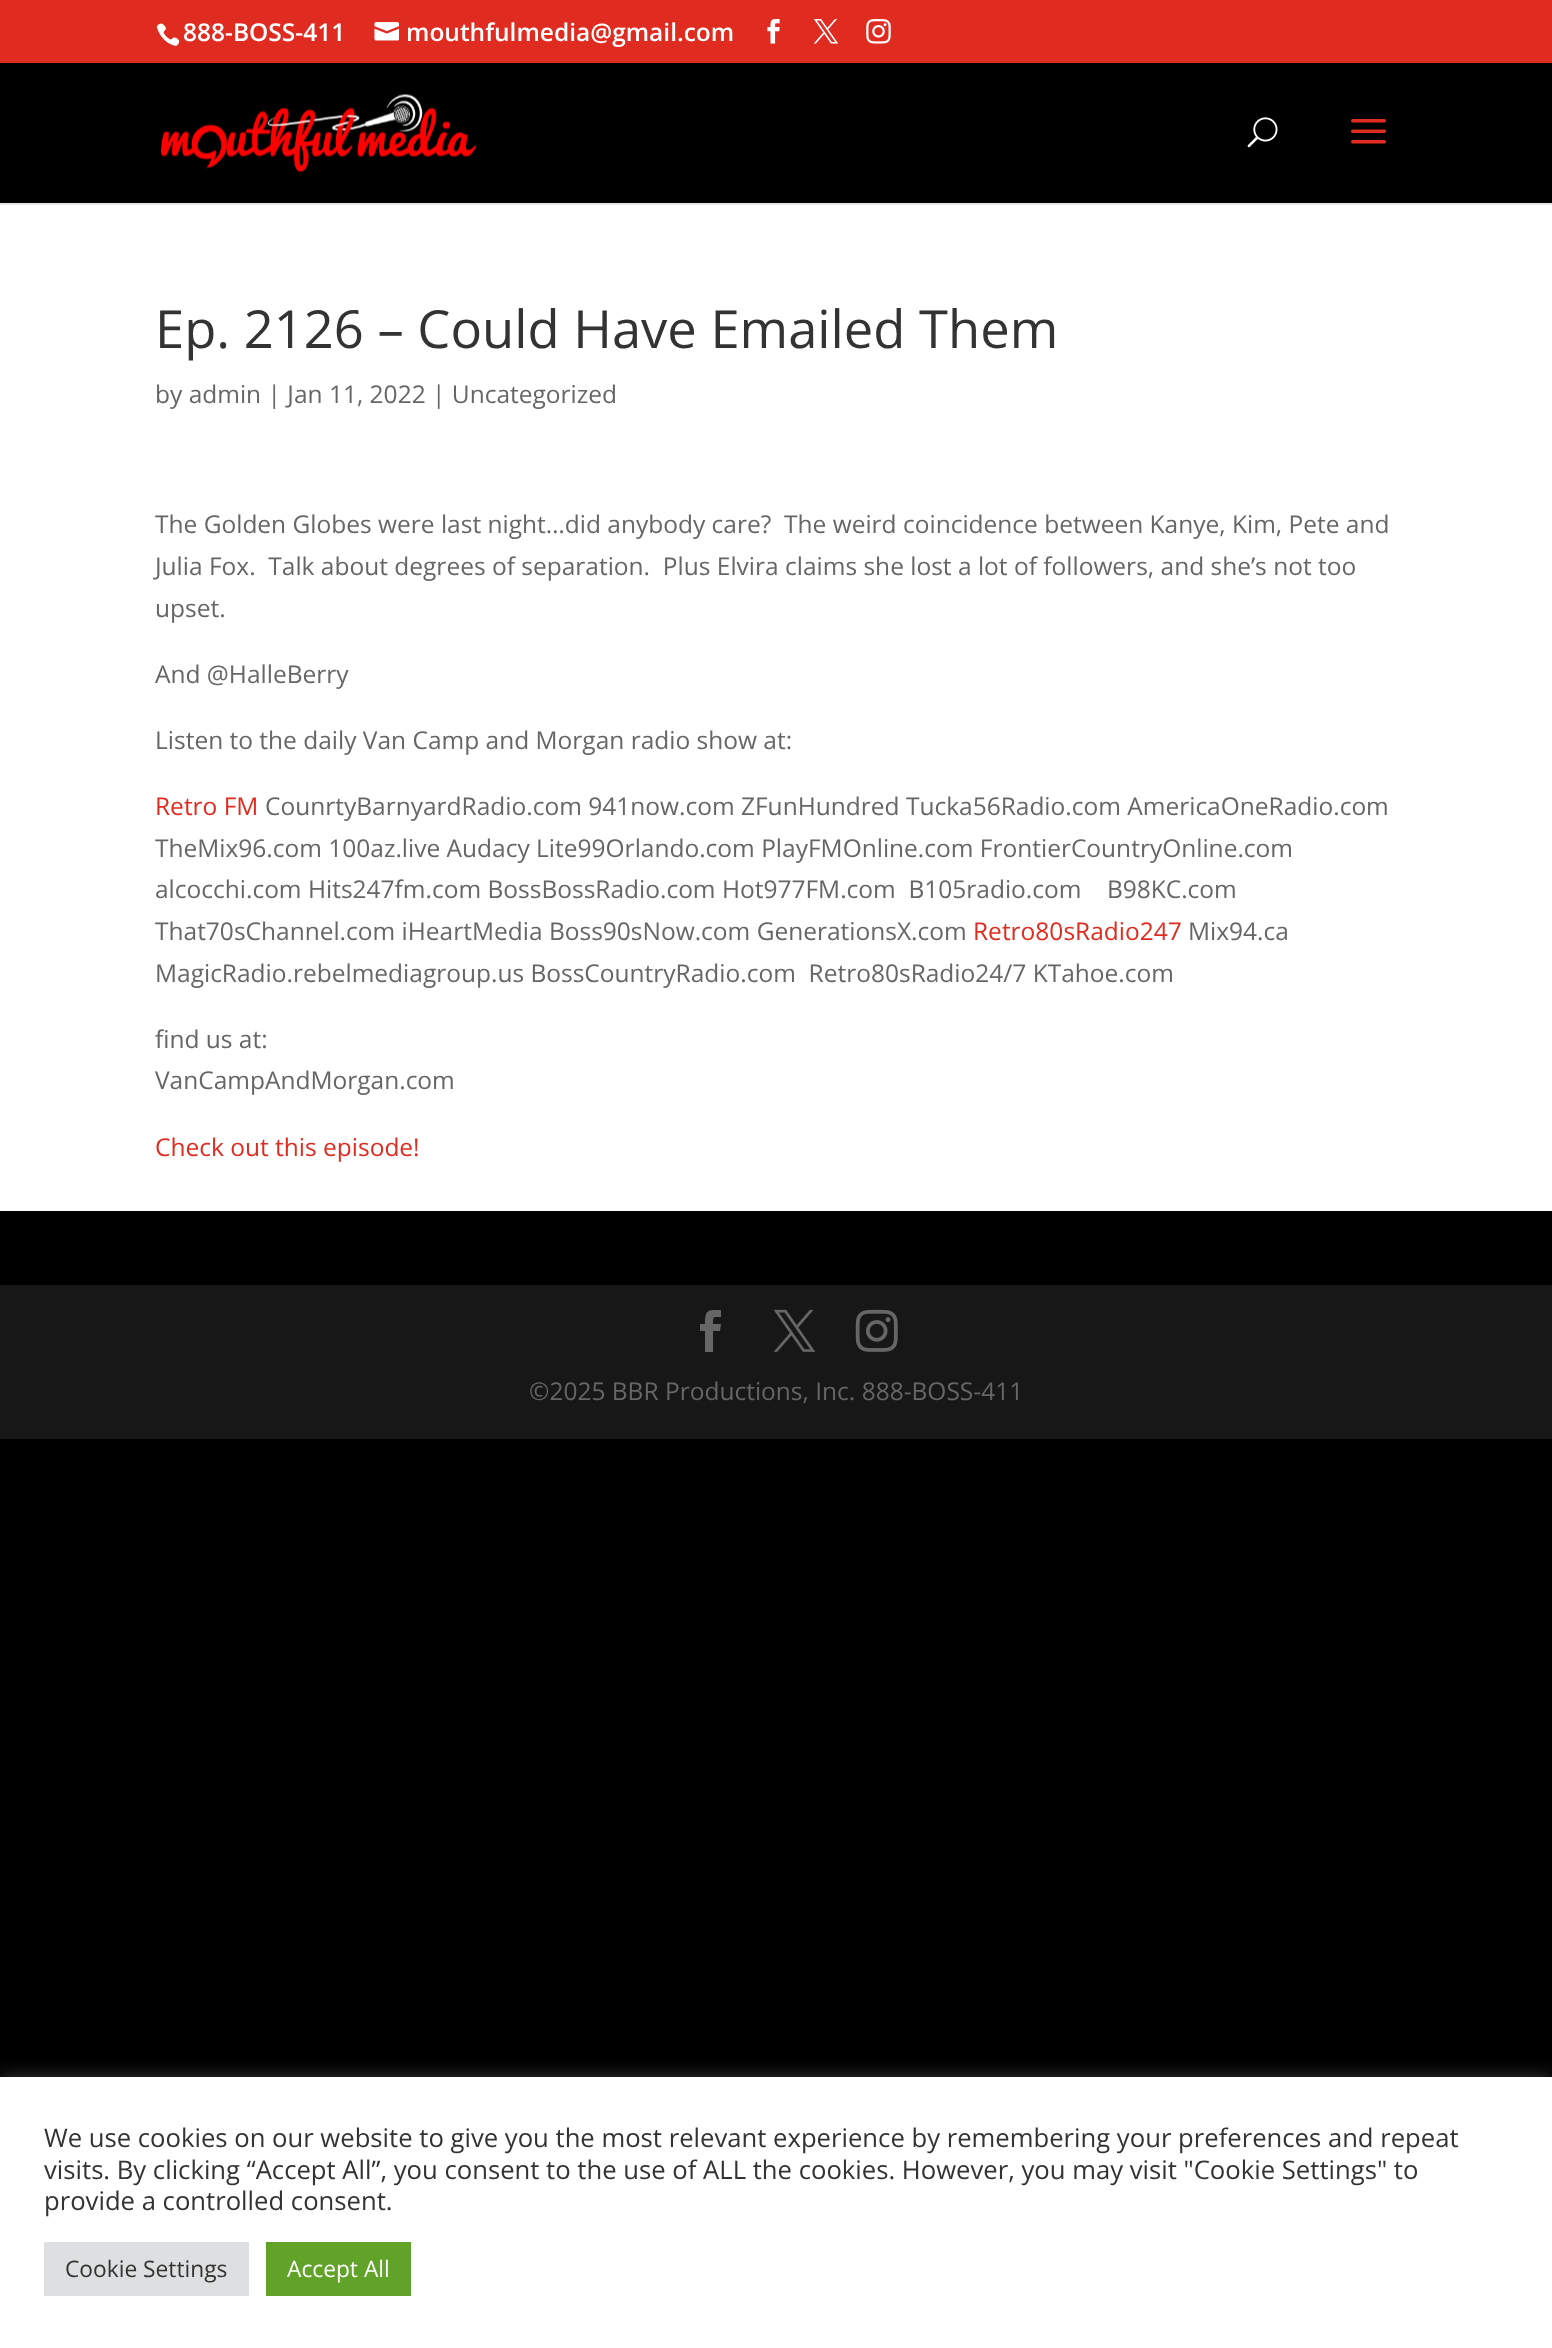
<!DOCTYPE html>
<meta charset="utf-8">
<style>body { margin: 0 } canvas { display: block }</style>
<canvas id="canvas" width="1552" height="2348"></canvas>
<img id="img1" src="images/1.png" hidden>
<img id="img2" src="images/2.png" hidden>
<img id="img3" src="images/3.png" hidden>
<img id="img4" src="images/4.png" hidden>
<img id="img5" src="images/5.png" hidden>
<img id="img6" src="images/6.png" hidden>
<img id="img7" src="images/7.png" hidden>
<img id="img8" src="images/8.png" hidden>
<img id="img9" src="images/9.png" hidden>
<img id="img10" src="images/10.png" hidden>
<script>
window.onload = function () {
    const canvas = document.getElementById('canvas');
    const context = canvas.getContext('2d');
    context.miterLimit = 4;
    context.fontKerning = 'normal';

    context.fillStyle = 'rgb(0, 0, 0)';
    context.fillRect(0, 0, 1552, 2348);
    context.fillStyle = 'rgb(224, 43, 32)';
    context.fillRect(0, 0, 1552, 63);
    context.drawImage(document.getElementById('img1'), 156, 23, 24, 23);
    context.drawImage(document.getElementById('img2'), 374, 22, 25, 19);
    context.drawImage(document.getElementById('img3'), 767, 19, 13, 25);
    context.drawImage(document.getElementById('img4'), 813, 19, 26, 25);
    context.drawImage(document.getElementById('img5'), 866, 19, 25, 25);
    context.fillStyle = 'rgb(230, 230, 230)';
    context.fillRect(0, 203, 1552, 2);
    context.drawImage(document.getElementById('img6'), 161, 94, 315, 78);
    context.drawImage(document.getElementById('img7'), 1247, 117, 31, 31);
    context.drawImage(document.getElementById('img8'), 1351, 119, 35, 25);
    context.fillStyle = 'rgb(255, 255, 255)';
    context.fillRect(0, 205, 1552, 1006);
    context.fillStyle = 'rgb(23, 23, 23)';
    context.fillRect(0, 1285, 1552, 154);
    context.fillStyle = 'rgb(102, 102, 102)';
    context.beginPath();
    context.moveTo(705, 1352);
    context.lineTo(713, 1352);
    context.lineTo(713, 1331);
    context.lineTo(720, 1331);
    context.lineTo(721, 1324);
    context.lineTo(713, 1324);
    context.bezierCurveTo(713, 1316, 713, 1317, 721, 1317);
    context.lineTo(721, 1310);
    context.bezierCurveTo(708, 1310, 705, 1309, 705, 1324);
    context.lineTo(700, 1324);
    context.lineTo(700, 1331);
    context.lineTo(705, 1331);
    context.closePath();
    context.fill();
    context.drawImage(document.getElementById('img9'), 773, 1309, 43, 43);
    context.drawImage(document.getElementById('img10'), 855, 1309, 43, 43);
    context.fillStyle = 'rgba(172, 171, 171, 0.3)';
    context.filter = 'blur(9px)';
    context.beginPath();
    context.rect(0, 2076, 1552, 271);
    context.fill();
    context.filter = 'none';
    context.fillStyle = 'rgb(255, 255, 255)';
    context.fillRect(0, 2077, 1552, 271);
    context.fillStyle = 'rgb(222, 223, 224)';
    context.fillRect(44, 2242, 205, 54);
    context.fillStyle = 'rgb(97, 162, 41)';
    context.fillRect(266, 2242, 145, 54);
    context.font = '600 24.5px Open Sans';
    context.fillStyle = 'rgb(255, 255, 255)';
    context.fillText('888-BOSS-411', 183, 41);
    context.fillText('mouthfulmedia@gmail.com', 406, 41);
    context.font = '52.5px Open Sans';
    context.fillStyle = 'rgb(51, 51, 51)';
    context.fillText('Ep. 2126 – Could Have Emailed Them', 155, 348);
    context.font = '24.5px Open Sans';
    context.fillStyle = 'rgb(102, 102, 102)';
    context.fillText('by admin | Jan 11, 2022 | Uncategorized', 155, 403);
    context.fillText('The Golden Globes were last night…did anybody care?  The weird coincidence between Kanye, Kim, Pete and', 155, 533);
    context.fillText('Julia Fox.  Talk about degrees of separation.  Plus Elvira claims she lost a lot of followers, and she’s not too', 155, 575);
    context.fillText('upset.', 155, 617);
    context.fillText('And @HalleBerry', 155, 683);
    context.fillText('Listen to the daily Van Camp and Morgan radio show at:', 155, 749);
    context.fillStyle = 'rgb(224, 43, 32)';
    context.fillText('Retro FM', 155, 815);
    context.fillStyle = 'rgb(102, 102, 102)';
    context.fillText('CounrtyBarnyardRadio.com 941now.com ZFunHundred Tucka56Radio.com AmericaOneRadio.com', 265, 815);
    context.fillText('TheMix96.com 100az.live Audacy Lite99Orlando.com PlayFMOnline.com FrontierCountryOnline.com', 155, 857);
    context.fillText('alcocchi.com Hits247fm.com BossBossRadio.com Hot977FM.com  B105radio.com    B98KC.com', 155, 898);
    context.fillText('That70sChannel.com iHeartMedia Boss90sNow.com GenerationsX.com', 155, 940);
    context.fillStyle = 'rgb(224, 43, 32)';
    context.fillText('Retro80sRadio247', 973, 940);
    context.fillStyle = 'rgb(102, 102, 102)';
    context.fillText('Mix94.ca', 1188, 940);
    context.fillText('MagicRadio.rebelmediagroup.us BossCountryRadio.com  Retro80sRadio24/7 KTahoe.com', 155, 982);
    context.fillText('find us at:', 155, 1048);
    context.fillText('VanCampAndMorgan.com', 155, 1089);
    context.fillStyle = 'rgb(224, 43, 32)';
    context.fillText('Check out this episode!', 155, 1156);
    context.fillStyle = 'rgb(102, 102, 102)';
    context.fillText('©2025 BBR Productions, Inc. 888-BOSS-411', 529, 1400);
    context.font = '25.67px Open Sans';
    context.fillStyle = 'rgb(51, 51, 51)';
    context.fillText('We use cookies on our website to give you the most relevant experience by remembering your preferences and repeat', 44, 2147);
    context.fillText('visits. By clicking “Accept All”, you consent to the use of ALL the cookies. However, you may visit "Cookie Settings" to', 44, 2179);
    context.fillText('provide a controlled consent.', 44, 2210);
    context.font = '22.75px Open Sans';
    context.fillText('Cookie Settings', 65, 2277);
    context.fillStyle = 'rgb(255, 255, 255)';
    context.fillText('Accept All', 287, 2277);
};
</script>
